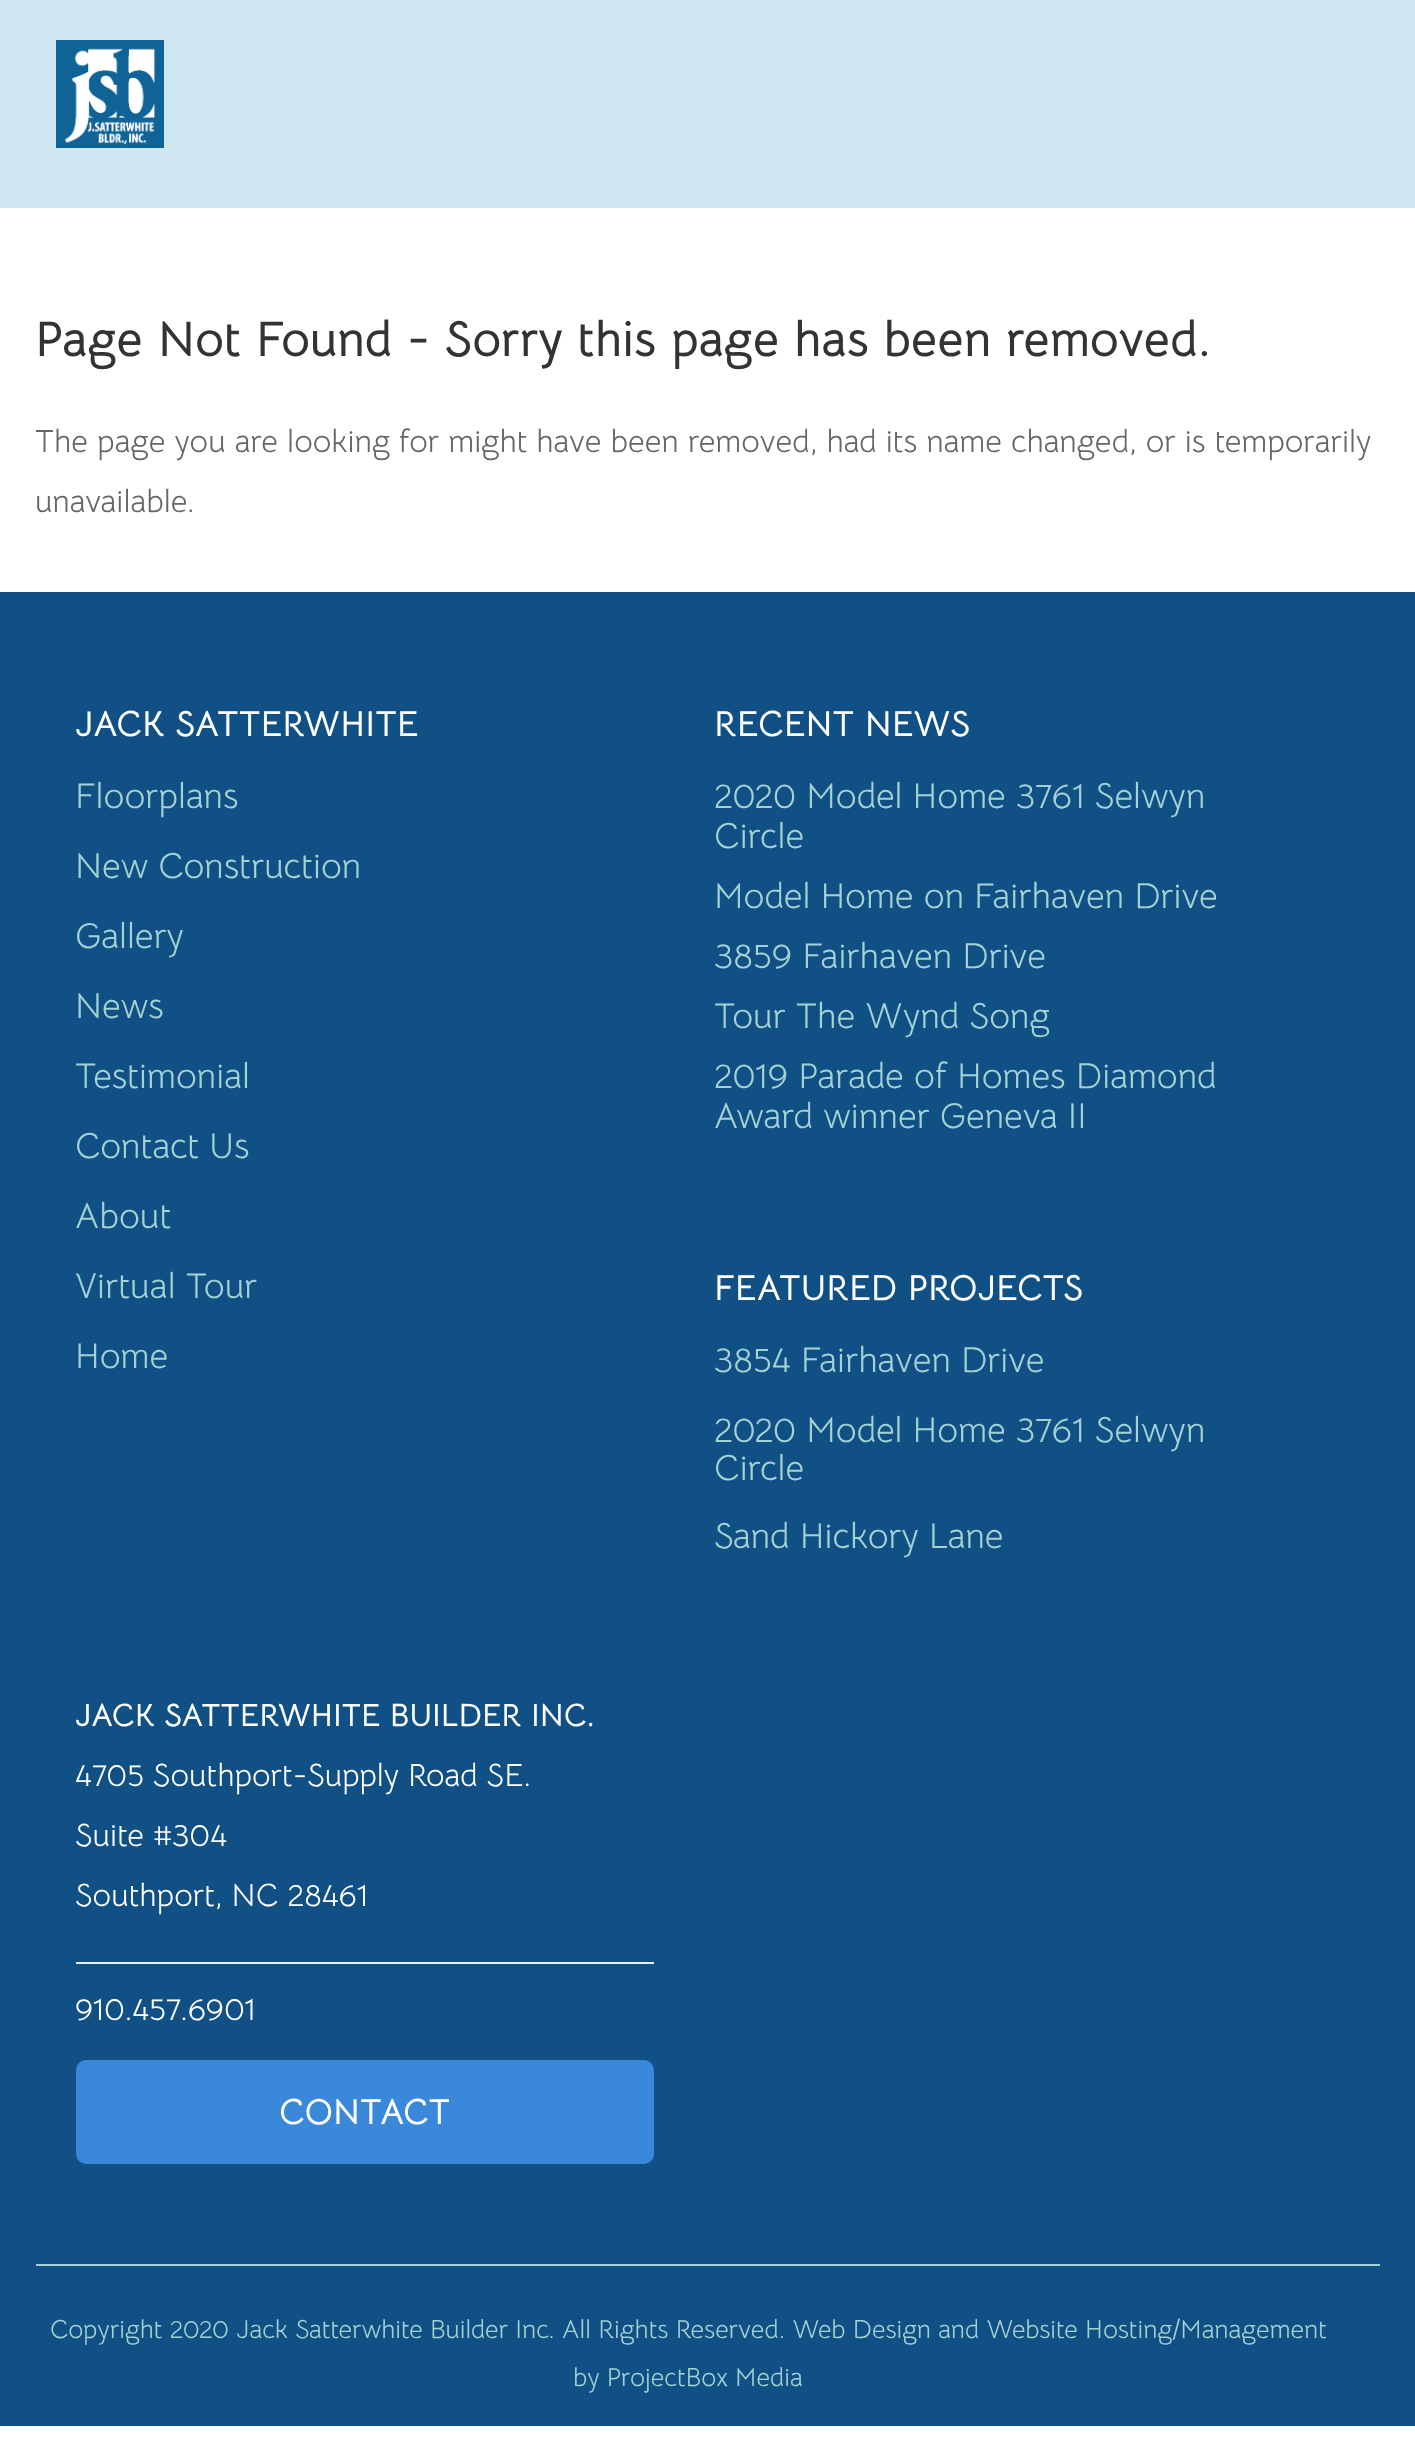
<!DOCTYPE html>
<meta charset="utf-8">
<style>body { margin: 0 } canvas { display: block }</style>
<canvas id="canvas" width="1415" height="2444"></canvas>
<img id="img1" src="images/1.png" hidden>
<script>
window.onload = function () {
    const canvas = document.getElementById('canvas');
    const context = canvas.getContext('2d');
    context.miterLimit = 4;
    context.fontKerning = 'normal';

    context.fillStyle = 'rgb(255, 255, 255)';
    context.fillRect(0, 0, 1415, 2444);
    context.fillStyle = 'rgb(207, 231, 240)';
    context.fillRect(0, 0, 1415, 208);
    context.drawImage(document.getElementById('img1'), 56, 40, 108, 108);
    context.fillStyle = 'rgb(17, 80, 133)';
    context.fillRect(0, 592, 1415, 1834);
    context.fillStyle = 'rgb(238, 238, 238)';
    context.fillRect(76, 1962, 578, 2);
    context.fillStyle = 'rgb(58, 136, 218)';
    context.beginPath();
    context.roundRect(77, 2061, 576, 102, 9);
    context.fill();
    context.strokeStyle = 'rgb(58, 136, 218)';
    context.lineWidth = 2;
    context.stroke();
    context.fillStyle = 'rgb(164, 210, 211)';
    context.fillRect(36, 2264, 1344, 2);
    context.font = 'bold 50px Bellota Text';
    context.fillStyle = 'rgb(51, 51, 51)';
    context.fillText('Page Not Found - Sorry this page has been removed.', 35, 356);
    context.font = '32px Bellota Text';
    context.fillStyle = 'rgb(102, 102, 102)';
    context.fillText('The page you are looking for might have been removed, had its name changed, or is temporarily', 35, 452);
    context.fillText('unavailable.', 35, 512);
    context.font = 'bold 36px Bellota Text';
    context.fillStyle = 'rgb(255, 255, 255)';
    context.fillText('JACK SATTERWHITE', 75, 736);
    context.font = '36px Bellota Text';
    context.fillStyle = 'rgb(164, 210, 211)';
    context.fillText('Floorplans', 75, 808);
    context.fillText('New Construction', 75, 878);
    context.fillText('Gallery', 75, 948);
    context.fillText('News', 75, 1018);
    context.fillText('Testimonial', 75, 1088);
    context.fillText('Contact Us', 75, 1158);
    context.fillText('About', 75, 1228);
    context.fillText('Virtual Tour', 75, 1298);
    context.fillText('Home', 75, 1368);
    context.font = 'bold 36px Bellota Text';
    context.fillStyle = 'rgb(255, 255, 255)';
    context.fillText('RECENT NEWS', 714, 736);
    context.font = '36px Bellota Text';
    context.fillStyle = 'rgb(164, 210, 211)';
    context.fillText('2020 Model Home 3761 Selwyn', 714, 808);
    context.fillText('Circle', 714, 848);
    context.fillText('Model Home on Fairhaven Drive', 714, 908);
    context.fillText('3859 Fairhaven Drive', 714, 968);
    context.fillText('Tour The Wynd Song', 714, 1028);
    context.fillText('2019 Parade of Homes Diamond', 714, 1088);
    context.fillText('Award winner Geneva II', 714, 1128);
    context.font = 'bold 36px Bellota Text';
    context.fillStyle = 'rgb(255, 255, 255)';
    context.fillText('FEATURED PROJECTS', 714, 1300);
    context.font = '36px Bellota Text';
    context.fillStyle = 'rgb(164, 210, 211)';
    context.fillText('3854 Fairhaven Drive', 714, 1372);
    context.fillText('2020 Model Home 3761 Selwyn', 714, 1442);
    context.fillText('Circle', 714, 1480);
    context.fillText('Sand Hickory Lane', 714, 1548);
    context.font = 'bold 32px Bellota Text';
    context.fillStyle = 'rgb(255, 255, 255)';
    context.fillText('JACK SATTERWHITE BUILDER INC.', 75, 1726);
    context.font = '32px Bellota Text';
    context.fillText('4705 Southport-Supply Road SE.', 75, 1786);
    context.fillText('Suite #304', 75, 1846);
    context.fillText('Southport, NC 28461', 75, 1906);
    context.fillText('910.457.6901', 75, 2020);
    context.font = 'bold 36px Bellota Text';
    context.fillText('CONTACT', 279, 2124);
    context.font = '26px Bellota Text';
    context.fillStyle = 'rgb(164, 210, 211)';
    context.fillText('Copyright 2020 Jack Satterwhite Builder Inc. All Rights Reserved. Web Design and Website Hosting/Management', 50, 2338);
    context.fillText('by ProjectBox Media', 573, 2386);
};
</script>
